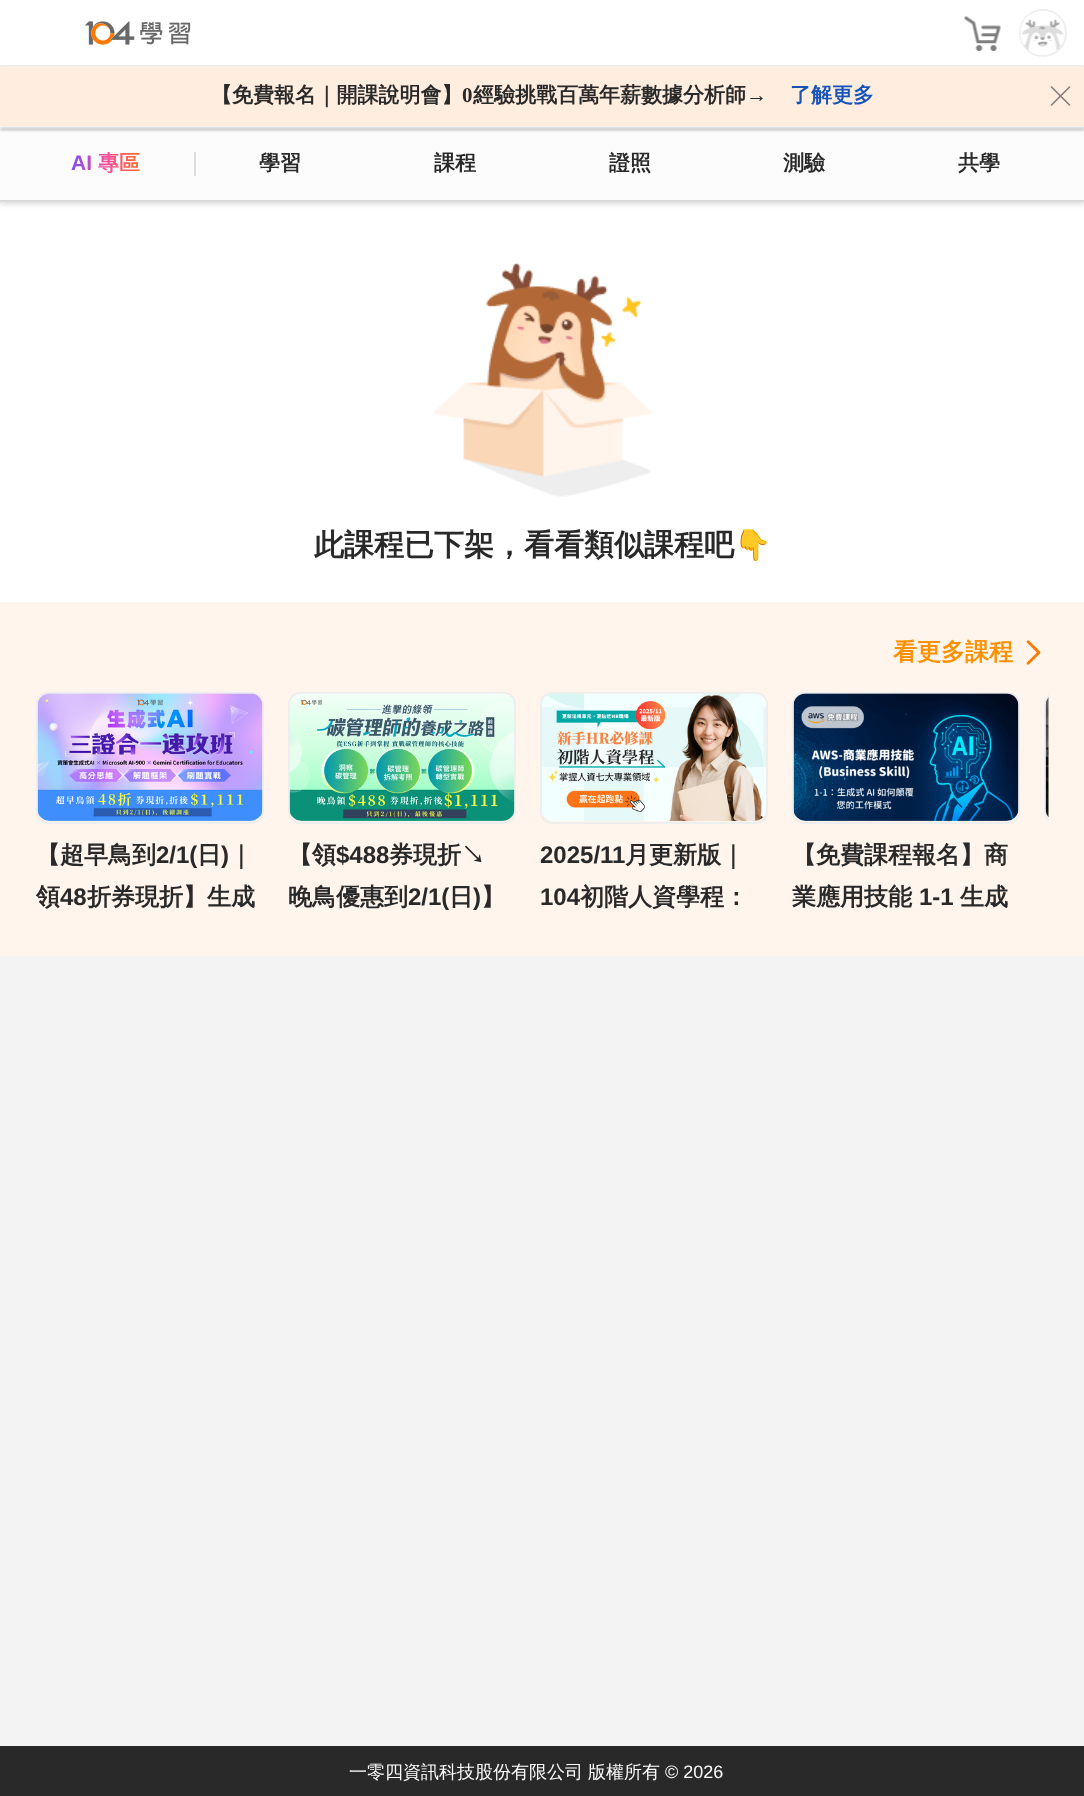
<!DOCTYPE html>
<meta charset="utf-8">
<style>body { margin: 0 } canvas { display: block }</style>
<canvas id="canvas" width="1084" height="1796"></canvas>
<img id="img1" src="images/1.png" hidden>
<img id="img2" src="images/2.png" hidden>
<img id="img3" src="images/3.png" hidden>
<img id="img4" src="images/4.png" hidden>
<img id="img5" src="images/5.png" hidden>
<img id="img6" src="images/6.png" hidden>
<img id="img7" src="images/7.png" hidden>
<img id="img8" src="images/8.png" hidden>
<img id="img9" src="images/9.png" hidden>
<img id="img10" src="images/10.png" hidden>
<img id="img11" src="images/11.png" hidden>
<script>
window.onload = function () {
    const canvas = document.getElementById('canvas');
    const context = canvas.getContext('2d');
    context.miterLimit = 4;
    context.fontKerning = 'normal';
    let gradient;

    context.fillStyle = 'rgb(243, 243, 243)';
    context.fillRect(0, 0, 1084, 1796);
    context.fillStyle = 'rgb(255, 255, 255)';
    context.beginPath();
    context.roundRect(0, 200, 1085, 756, 6);
    context.fill();
    context.fillStyle = 'rgba(0, 0, 0, 0.2)';
    context.filter = 'blur(3px)';
    context.beginPath();
    context.rect(0, 69, 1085, 134);
    context.fill();
    context.filter = 'none';
    context.fillStyle = 'rgb(255, 255, 255)';
    context.fillRect(0, 0, 1084, 65);
    context.fillStyle = 'rgb(238, 238, 238)';
    context.fillRect(0, 66, 1084, 1);
    context.drawImage(document.getElementById('img1'), 84, 21, 107, 24);
    context.drawImage(document.getElementById('img2'), 964, 16, 37, 35);
    context.beginPath();
    context.arc(1043, 33, 23, 0, 2 * Math.PI);
    context.strokeStyle = 'rgb(238, 238, 238)';
    context.lineWidth = 2;
    context.stroke();
    context.drawImage(document.getElementById('img3'), 1020, 11, 44, 44);
    context.fillStyle = 'rgb(252, 252, 252)';
    context.fillRect(0, 126, 1084, 74);
    context.fillStyle = 'rgb(255, 238, 223)';
    context.fillRect(0, 67, 1084, 59);
    context.drawImage(document.getElementById('img4'), 1050, 86, 21, 20);
    context.fillStyle = 'rgba(0, 0, 0, 0.3)';
    context.filter = 'blur(1.5px)';
    context.beginPath();
    context.rect(0, 128, 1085, 2);
    context.fill();
    context.filter = 'none';
    context.fillStyle = 'rgb(221, 221, 221)';
    context.fillRect(194, 152, 2, 24);
    context.drawImage(document.getElementById('img5'), 433, 262, 220, 235);
    context.fillStyle = 'rgb(255, 245, 236)';
    context.fillRect(0, 602, 1084, 354);
    context.drawImage(document.getElementById('img6'), 1026, 640, 15, 25);
    context.save();
    context.beginPath();
    context.rect(36, 692, 1013, 234);
    context.clip();
    context.beginPath();
    context.roundRect(1045, 693, 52, 130, 11);
    context.stroke();
    context.restore();
    context.drawImage(document.getElementById('img7'), 1045, 697, 4, 120);
    context.beginPath();
    context.roundRect(37, 693, 226, 130, 11);
    context.stroke();
    context.drawImage(document.getElementById('img8'), 37, 693, 226, 128);
    context.beginPath();
    context.roundRect(289, 693, 226, 130, 11);
    context.stroke();
    context.drawImage(document.getElementById('img9'), 289, 693, 226, 128);
    context.beginPath();
    context.roundRect(541, 693, 226, 130, 11);
    context.stroke();
    context.drawImage(document.getElementById('img10'), 542, 693, 224, 128);
    context.beginPath();
    context.roundRect(793, 693, 226, 130, 11);
    context.stroke();
    context.drawImage(document.getElementById('img11'), 793, 693, 226, 128);
    context.fillStyle = 'rgb(41, 41, 41)';
    context.fillRect(0, 1746, 1084, 50);
    context.font = 'bold 21px WenQuanYi Zen Hei';
    context.fillText('【免費報名｜開課說明會】', 211, 102);
    context.font = 'bold 21px Liberation Serif';
    context.fillText('0', 462, 102);
    context.font = 'bold 21px WenQuanYi Zen Hei';
    context.fillText('經驗挑戰百萬年薪數據分析師', 473, 102);
    context.font = 'bold 21px Liberation Serif';
    context.fillText('→', 746, 102);
    context.font = 'bold 21px WenQuanYi Zen Hei';
    context.fillStyle = 'rgb(22, 84, 185)';
    context.fillText('了解更多', 790, 102);
    context.font = 'bold 21px Liberation Sans';
    gradient = context.createLinearGradient(18, 163, 193, 163);
    gradient.addColorStop(0.05, 'rgb(77, 144, 255)');
    gradient.addColorStop(0.29, 'rgb(122, 76, 255)');
    gradient.addColorStop(0.53, 'rgb(255, 77, 139)');
    gradient.addColorStop(0.76, 'rgb(255, 120, 0)');
    gradient.addColorStop(1, 'rgb(255, 164, 60)');
    context.fillStyle = gradient;
    context.fillText('AI', 71, 170);
    context.font = 'bold 21px WenQuanYi Zen Hei';
    context.fillText('專區', 98, 170);
    context.fillStyle = 'rgb(41, 41, 41)';
    context.fillText('學習', 259, 170);
    context.fillText('課程', 434, 170);
    context.fillText('證照', 609, 170);
    context.fillText('測驗', 783, 170);
    context.fillText('共學', 958, 170);
    context.font = 'bold 30px WenQuanYi Zen Hei';
    context.fillText('此課程已下架，看看類似課程吧', 314, 555);
    context.font = 'bold 30px Noto Color Emoji';
    context.fillText('👇', 734, 555);
    context.font = 'bold 24px WenQuanYi Zen Hei';
    context.fillStyle = 'rgb(255, 145, 0)';
    context.fillText('看更多課程', 893, 660);
    context.fillStyle = 'rgb(41, 41, 41)';
    context.fillText('【超早鳥到', 36, 863);
    context.font = 'bold 24px Liberation Sans';
    context.fillText('2/1(', 156, 863);
    context.font = 'bold 24px WenQuanYi Zen Hei';
    context.fillText('日', 197, 863);
    context.font = 'bold 24px Liberation Sans';
    context.fillText(')', 221, 863);
    context.font = 'bold 24px WenQuanYi Zen Hei';
    context.fillText('｜', 229, 863);
    context.fillText('領', 36, 905);
    context.font = 'bold 24px Liberation Sans';
    context.fillText('48', 60, 905);
    context.font = 'bold 24px WenQuanYi Zen Hei';
    context.fillText('折券現折】生成', 87, 905);
    context.fillText('【領', 288, 863);
    context.font = 'bold 24px Liberation Sans';
    context.fillText('$488', 336, 863);
    context.font = 'bold 24px WenQuanYi Zen Hei';
    context.fillText('券現折↘', 389, 863);
    context.fillText('晚鳥優惠到', 288, 905);
    context.font = 'bold 24px Liberation Sans';
    context.fillText('2/1(', 408, 905);
    context.font = 'bold 24px WenQuanYi Zen Hei';
    context.fillText('日', 449, 905);
    context.font = 'bold 24px Liberation Sans';
    context.fillText(')', 473, 905);
    context.font = 'bold 24px WenQuanYi Zen Hei';
    context.fillText('】', 481, 905);
    context.font = 'bold 24px Liberation Sans';
    context.fillText('2025/11', 540, 863);
    context.font = 'bold 24px WenQuanYi Zen Hei';
    context.fillText('月更新版｜', 625, 863);
    context.font = 'bold 24px Liberation Sans';
    context.fillText('104', 540, 905);
    context.font = 'bold 24px WenQuanYi Zen Hei';
    context.fillText('初階人資學程：', 580, 905);
    context.fillText('【免費課程報名】商', 792, 863);
    context.fillText('業應用技能', 792, 905);
    context.font = 'bold 24px Liberation Sans';
    context.fillText('1-1', 919, 905);
    context.font = 'bold 24px WenQuanYi Zen Hei';
    context.fillText('生成', 960, 905);
    context.font = '500 18px WenQuanYi Zen Hei';
    context.fillStyle = 'rgb(252, 252, 252)';
    context.fillText('一零四資訊科技股份有限公司', 349, 1778);
    context.fillText('版權所有', 588, 1778);
    context.font = '18px Liberation Sans';
    context.fillText('© 2026', 665, 1778);
};
</script>
